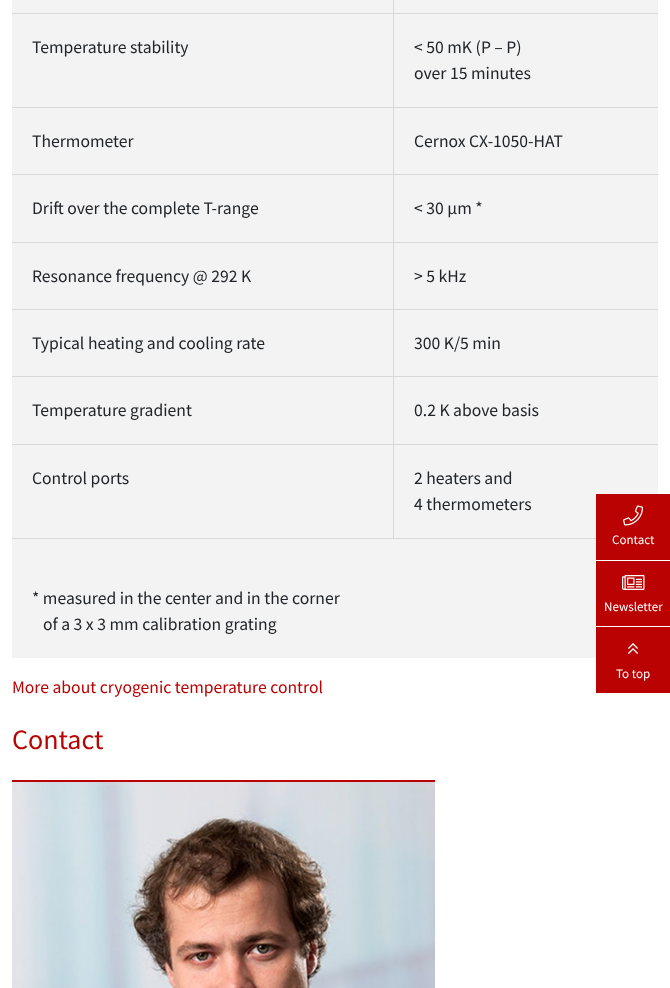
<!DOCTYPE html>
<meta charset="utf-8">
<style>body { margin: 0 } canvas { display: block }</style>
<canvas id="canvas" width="670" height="988"></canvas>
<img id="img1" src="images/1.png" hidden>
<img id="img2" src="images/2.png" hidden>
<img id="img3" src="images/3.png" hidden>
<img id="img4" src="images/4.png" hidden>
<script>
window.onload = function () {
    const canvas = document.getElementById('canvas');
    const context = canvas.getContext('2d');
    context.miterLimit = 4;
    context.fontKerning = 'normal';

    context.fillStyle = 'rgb(255, 255, 255)';
    context.fillRect(0, 0, 670, 988);
    context.fillStyle = 'rgb(243, 243, 243)';
    context.fillRect(12, 0, 646, 658);
    context.fillStyle = 'rgb(216, 216, 216)';
    context.fillRect(393, 538, 203, 1);
    context.fillRect(393, 444, 1, 95);
    context.fillRect(393, 444, 265, 1);
    context.fillRect(393, 376, 1, 69);
    context.fillRect(393, 376, 265, 1);
    context.fillRect(393, 309, 1, 68);
    context.fillRect(393, 309, 265, 1);
    context.fillRect(393, 242, 1, 68);
    context.fillRect(393, 242, 265, 1);
    context.fillRect(393, 174, 1, 69);
    context.fillRect(393, 174, 265, 1);
    context.fillRect(393, 107, 1, 68);
    context.fillRect(393, 107, 265, 1);
    context.fillRect(393, 13, 1, 95);
    context.fillRect(393, 13, 265, 1);
    context.fillRect(393, 0, 1, 14);
    context.fillRect(12, 13, 382, 1);
    context.fillRect(12, 107, 382, 1);
    context.fillRect(12, 174, 382, 1);
    context.fillRect(12, 242, 382, 1);
    context.fillRect(12, 309, 382, 1);
    context.fillRect(12, 376, 382, 1);
    context.fillRect(12, 444, 382, 1);
    context.fillRect(12, 538, 382, 1);
    context.fillStyle = 'rgb(186, 2, 2)';
    context.fillRect(12, 780, 423, 2);
    context.drawImage(document.getElementById('img1'), 12, 782, 423, 206);
    context.fillRect(596, 494, 74, 66);
    context.fillStyle = 'rgb(255, 255, 255)';
    context.fillRect(596, 560, 62, 1);
    context.drawImage(document.getElementById('img2'), 623, 505, 20, 21);
    context.fillStyle = 'rgb(186, 2, 2)';
    context.fillRect(596, 561, 74, 65);
    context.fillStyle = 'rgb(255, 255, 255)';
    context.fillRect(596, 626, 62, 1);
    context.drawImage(document.getElementById('img3'), 622, 575, 23, 15);
    context.fillStyle = 'rgb(186, 2, 2)';
    context.fillRect(596, 627, 74, 66);
    context.drawImage(document.getElementById('img4'), 628, 643, 10, 11);
    context.font = '17.6px Source Sans Pro';
    context.fillStyle = 'rgb(33, 37, 41)';
    context.fillText('Temperature stability', 32, 53);
    context.fillText('< 50 mK (P – P)', 414, 53);
    context.fillText('over 15 minutes', 414, 79);
    context.fillText('Thermometer', 32, 147);
    context.fillText('Cernox CX-1050-HAT', 414, 147);
    context.fillText('Drift over the complete T-range', 32, 214);
    context.fillText('< 30 µm *', 414, 214);
    context.fillText('Resonance frequency @ 292 K', 32, 282);
    context.fillText('> 5 kHz', 414, 282);
    context.fillText('Typical heating and cooling rate', 32, 349);
    context.fillText('300 K/5 min', 414, 349);
    context.fillText('Temperature gradient', 32, 416);
    context.fillText('0.2 K above basis', 414, 416);
    context.fillText('Control ports', 32, 484);
    context.fillText('2 heaters and', 414, 484);
    context.fillText('4 thermometers', 414, 510);
    context.fillText('* measured in the center and in the corner', 32, 604);
    context.fillText('of a 3 x 3 mm calibration grating', 43, 630);
    context.fillStyle = 'rgb(186, 2, 2)';
    context.fillText('More about cryogenic temperature control', 12, 693);
    context.font = '28px Source Sans Pro';
    context.fillText('Contact', 12, 749);
    context.font = '13px Source Sans Pro';
    context.fillStyle = 'rgb(255, 255, 255)';
    context.fillText('Contact', 612, 544);
    context.fillText('Newsletter', 604, 611);
    context.fillText('To top', 616, 678);
};
</script>
